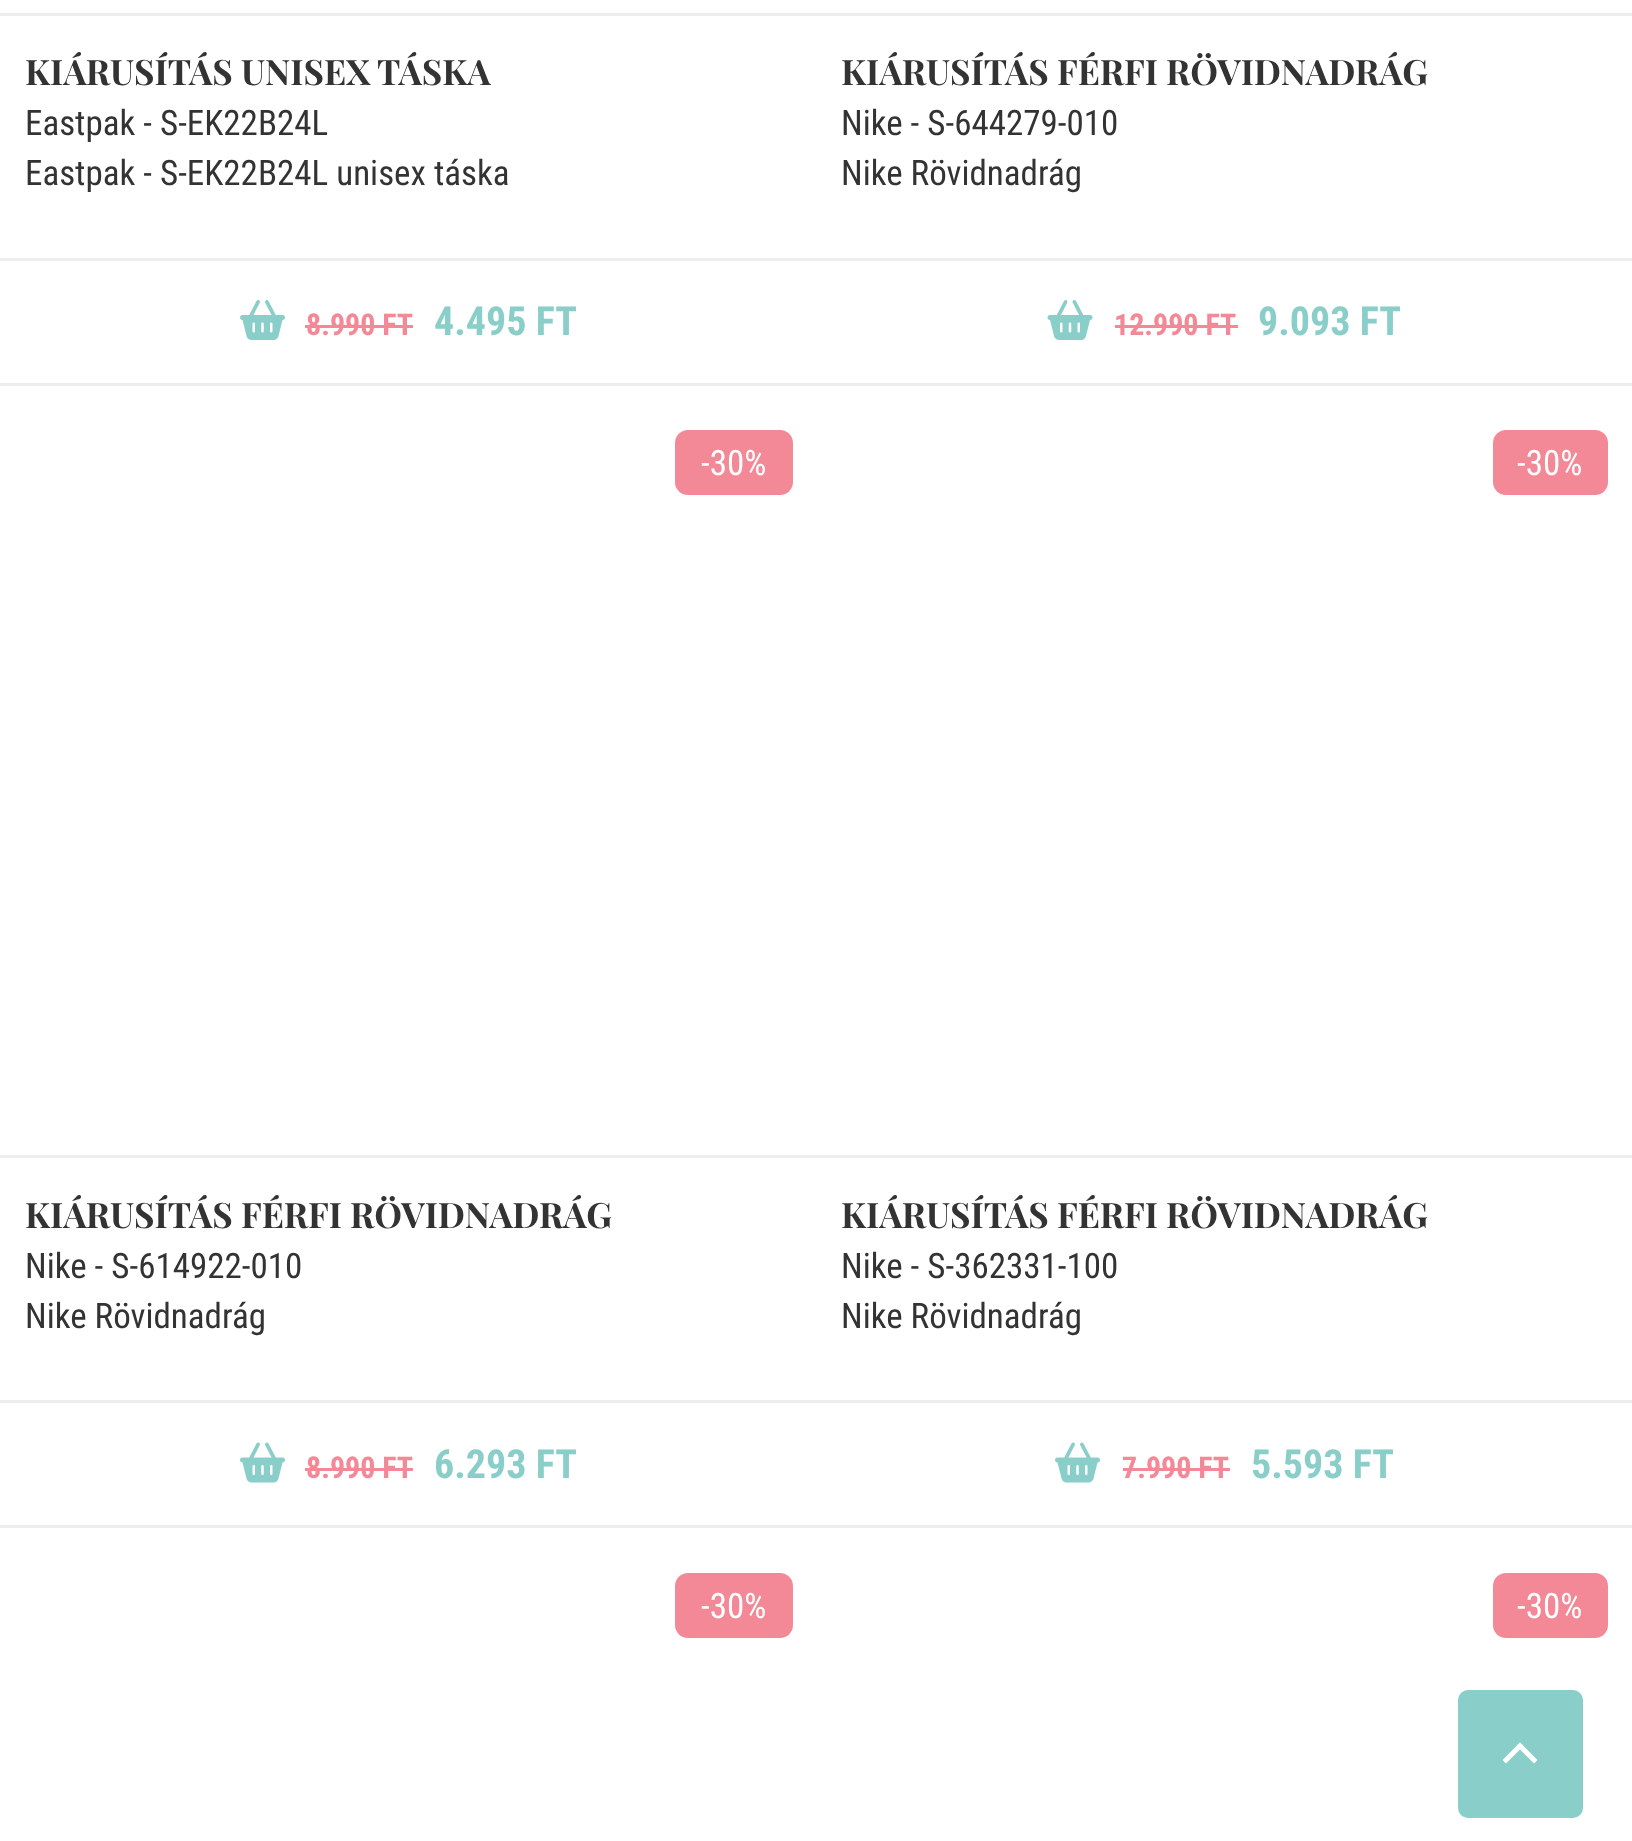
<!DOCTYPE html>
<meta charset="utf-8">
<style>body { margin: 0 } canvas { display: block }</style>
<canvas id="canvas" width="1632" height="1841"></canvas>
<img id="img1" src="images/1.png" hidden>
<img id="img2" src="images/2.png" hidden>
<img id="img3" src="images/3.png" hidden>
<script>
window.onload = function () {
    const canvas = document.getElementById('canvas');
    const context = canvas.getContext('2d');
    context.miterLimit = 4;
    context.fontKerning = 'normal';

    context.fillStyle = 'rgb(255, 255, 255)';
    context.fillRect(0, 0, 1632, 1841);
    context.fillStyle = 'rgb(237, 237, 237)';
    context.fillRect(0, 13, 1632, 3);
    context.fillRect(0, 258, 1632, 3);
    context.fillRect(0, 383, 1632, 3);
    context.drawImage(document.getElementById('img1'), 240, 300, 45, 40);
    context.fillStyle = 'rgb(243, 137, 150)';
    context.fillRect(305, 325, 108, 3);
    context.drawImage(document.getElementById('img2'), 1047, 300, 46, 40);
    context.fillRect(1115, 325, 123, 3);
    context.beginPath();
    context.roundRect(675, 430, 118, 65, 13);
    context.fill();
    context.fillStyle = 'rgb(237, 237, 237)';
    context.fillRect(0, 1155, 1632, 3);
    context.fillRect(0, 1400, 1632, 3);
    context.fillRect(0, 1525, 1632, 3);
    context.drawImage(document.getElementById('img3'), 240, 1442, 45, 41);
    context.fillStyle = 'rgb(243, 137, 150)';
    context.fillRect(305, 1468, 108, 3);
    context.beginPath();
    context.roundRect(1493, 430, 115, 65, 13);
    context.fill();
    context.drawImage(document.getElementById('img3'), 1055, 1442, 45, 41);
    context.fillRect(1123, 1468, 107, 3);
    context.beginPath();
    context.roundRect(675, 1573, 118, 65, 13);
    context.fill();
    context.beginPath();
    context.roundRect(1493, 1573, 115, 65, 13);
    context.fill();
    context.fillStyle = 'rgb(138, 206, 201)';
    context.beginPath();
    context.roundRect(1458, 1690, 125, 128, 10);
    context.fill();
    context.fillStyle = 'rgb(255, 255, 255)';
    context.beginPath();
    context.moveTo(1506, 1763.5);
    context.lineTo(1502.5, 1760);
    context.lineTo(1520, 1742.5);
    context.lineTo(1523.5, 1746);
    context.closePath();
    context.fill();
    context.beginPath();
    context.moveTo(1534, 1763.5);
    context.lineTo(1516.5, 1746);
    context.lineTo(1520, 1742.5);
    context.lineTo(1537.5, 1760);
    context.closePath();
    context.fill();
    context.font = 'bold 35px Playfair Display';
    context.fillStyle = 'rgb(51, 51, 51)';
    context.fillText('KIÁRUSÍTÁS UNISEX TÁSKA', 25, 85);
    context.font = '35px Roboto Condensed';
    context.fillText('Eastpak - S-EK22B24L', 25, 135);
    context.fillText('Eastpak - S-EK22B24L unisex táska', 25, 185);
    context.font = 'bold 30px Roboto Condensed';
    context.fillStyle = 'rgb(243, 137, 150)';
    context.fillText('8.990 FT', 306, 335);
    context.font = 'bold 40px Roboto Condensed';
    context.fillStyle = 'rgb(138, 206, 201)';
    context.fillText('4.495 FT', 434, 335);
    context.font = 'bold 35px Playfair Display';
    context.fillStyle = 'rgb(51, 51, 51)';
    context.fillText('KIÁRUSÍTÁS FÉRFI RÖVIDNADRÁG', 841, 85);
    context.font = '35px Roboto Condensed';
    context.fillText('Nike - S-644279-010', 841, 135);
    context.fillText('Nike Rövidnadrág', 841, 185);
    context.font = 'bold 30px Roboto Condensed';
    context.fillStyle = 'rgb(243, 137, 150)';
    context.fillText('12.990 FT', 1114, 335);
    context.font = 'bold 40px Roboto Condensed';
    context.fillStyle = 'rgb(138, 206, 201)';
    context.fillText('9.093 FT', 1258, 335);
    context.font = '35px Roboto Condensed';
    context.fillStyle = 'rgb(255, 255, 255)';
    context.fillText('-30%', 701, 475);
    context.font = 'bold 35px Playfair Display';
    context.fillStyle = 'rgb(51, 51, 51)';
    context.fillText('KIÁRUSÍTÁS FÉRFI RÖVIDNADRÁG', 25, 1228);
    context.font = '35px Roboto Condensed';
    context.fillText('Nike - S-614922-010', 25, 1278);
    context.fillText('Nike Rövidnadrág', 25, 1328);
    context.font = 'bold 30px Roboto Condensed';
    context.fillStyle = 'rgb(243, 137, 150)';
    context.fillText('8.990 FT', 306, 1478);
    context.font = 'bold 40px Roboto Condensed';
    context.fillStyle = 'rgb(138, 206, 201)';
    context.fillText('6.293 FT', 434, 1478);
    context.font = '35px Roboto Condensed';
    context.fillStyle = 'rgb(255, 255, 255)';
    context.fillText('-30%', 1517, 475);
    context.font = 'bold 35px Playfair Display';
    context.fillStyle = 'rgb(51, 51, 51)';
    context.fillText('KIÁRUSÍTÁS FÉRFI RÖVIDNADRÁG', 841, 1228);
    context.font = '35px Roboto Condensed';
    context.fillText('Nike - S-362331-100', 841, 1278);
    context.fillText('Nike Rövidnadrág', 841, 1328);
    context.font = 'bold 30px Roboto Condensed';
    context.fillStyle = 'rgb(243, 137, 150)';
    context.fillText('7.990 FT', 1122, 1478);
    context.font = 'bold 40px Roboto Condensed';
    context.fillStyle = 'rgb(138, 206, 201)';
    context.fillText('5.593 FT', 1251, 1478);
    context.font = '35px Roboto Condensed';
    context.fillStyle = 'rgb(255, 255, 255)';
    context.fillText('-30%', 701, 1618);
    context.fillText('-30%', 1517, 1618);
};
</script>
